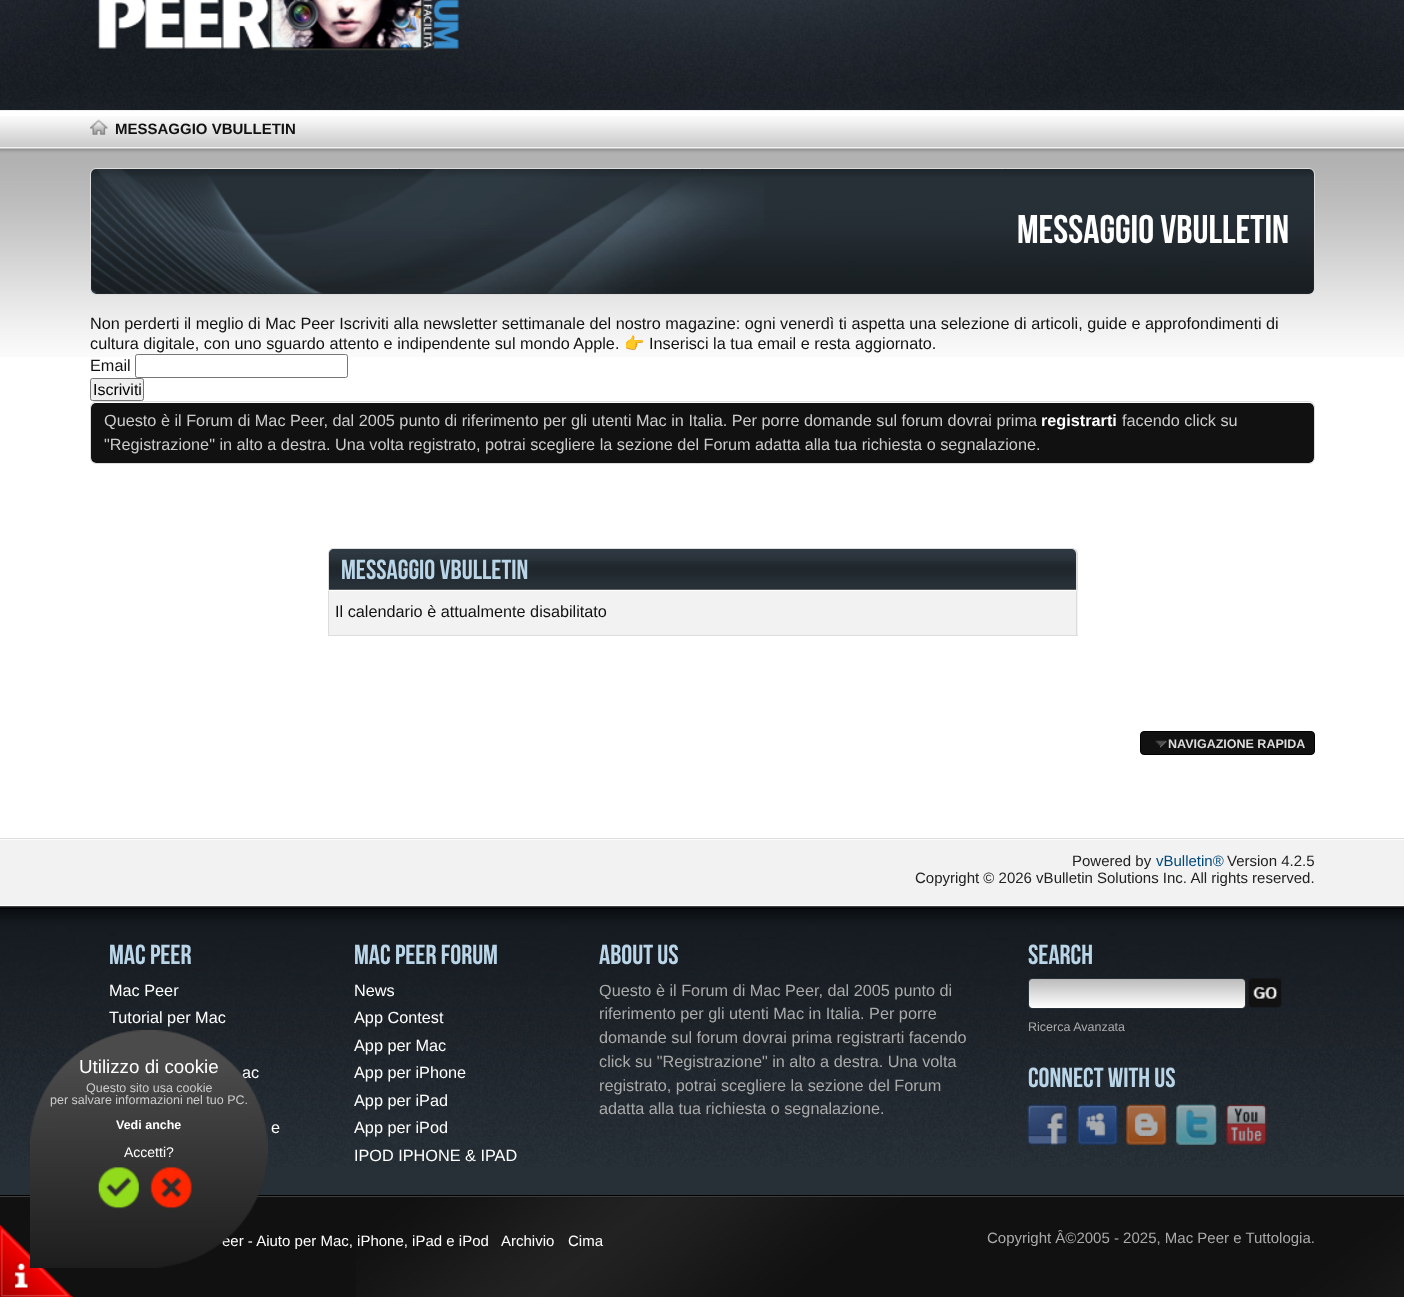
<!DOCTYPE html>
<meta charset="utf-8">
<style>body { margin: 0 } canvas { display: block }</style>
<canvas id="canvas" width="1404" height="1297"></canvas>
<img id="img1" src="images/1.png" hidden>
<img id="img2" src="images/2.png" hidden>
<img id="img3" src="images/3.png" hidden>
<img id="img4" src="images/4.png" hidden>
<img id="img5" src="images/5.png" hidden>
<img id="img6" src="images/6.png" hidden>
<img id="img7" src="images/7.png" hidden>
<img id="img8" src="images/8.png" hidden>
<img id="img9" src="images/9.png" hidden>
<img id="img10" src="images/10.png" hidden>
<img id="img11" src="images/11.png" hidden>
<img id="img12" src="images/12.png" hidden>
<img id="img13" src="images/13.png" hidden>
<img id="img14" src="images/14.png" hidden>
<img id="img15" src="images/15.png" hidden>
<img id="img16" src="images/16.png" hidden>
<img id="img17" src="images/17.png" hidden>
<img id="img18" src="images/18.png" hidden>
<img id="img19" src="images/19.png" hidden>
<img id="img20" src="images/23.png" hidden>
<img id="img21" src="images/20.png" hidden>
<img id="img22" src="images/21.png" hidden>
<img id="img23" src="images/22.png" hidden>
<script>
window.onload = function () {
    const canvas = document.getElementById('canvas');
    const context = canvas.getContext('2d');
    context.miterLimit = 4;
    context.fontKerning = 'normal';
    let gradient;

    context.fillStyle = 'rgb(255, 255, 255)';
    context.fillRect(0, 0, 1404, 1297);
    context.drawImage(document.getElementById('img1'), 0, 0, 1404, 110);
    context.fillStyle = 'rgb(238, 238, 238)';
    context.fillRect(0, 110, 1404, 1);
    context.drawImage(document.getElementById('img2'), 98, 0, 361, 51);
    context.drawImage(document.getElementById('img3'), 0, 116, 1404, 32);
    context.fillRect(0, 148, 1404, 1);
    context.drawImage(document.getElementById('img4'), 90, 119, 18, 16);
    context.drawImage(document.getElementById('img5'), 0, 148, 1404, 209);
    context.fillStyle = 'rgb(39, 48, 55)';
    context.beginPath();
    context.roundRect(91, 169, 1223, 125, 5);
    context.fill();
    context.drawImage(document.getElementById('img6'), 91, 168, 1223, 126);
    context.beginPath();
    context.roundRect(90.5, 168.5, 1224, 126, 5.5);
    context.strokeStyle = 'rgb(221, 221, 221)';
    context.stroke();
    context.drawImage(document.getElementById('img7'), 91, 169, 673, 125);
    context.fillStyle = 'rgb(255, 255, 255)';
    context.beginPath();
    context.roundRect(135.5, 354.5, 212, 23, 2);
    context.fill();
    context.strokeStyle = 'rgb(118, 118, 118)';
    context.stroke();
    context.fillStyle = 'rgb(239, 239, 239)';
    context.beginPath();
    context.roundRect(90.5, 378.5, 53, 22, 2);
    context.fill();
    context.stroke();
    context.fillStyle = 'rgb(17, 17, 17)';
    context.beginPath();
    context.roundRect(91, 403, 1223, 60, 5);
    context.fill();
    context.beginPath();
    context.roundRect(90.5, 401.5, 1224, 62, 5.5);
    context.strokeStyle = 'rgb(221, 221, 221)';
    context.stroke();
    context.fillStyle = 'rgb(39, 48, 55)';
    context.beginPath();
    context.roundRect(329, 549, 747, 41, [5, 5, 0, 0]);
    context.fill();
    context.drawImage(document.getElementById('img8'), 328, 548, 748, 42);
    context.fillStyle = 'rgb(221, 221, 221)';
    context.beginPath();
    context.moveTo(334, 548);
    context.lineTo(1071, 548);
    context.bezierCurveTo(1075, 548, 1078, 550, 1078, 554);
    context.lineTo(1078, 590);
    context.lineTo(328, 590);
    context.lineTo(328, 554);
    context.bezierCurveTo(328, 550, 330, 548, 334, 548);
    context.closePath();
    context.moveTo(334, 549);
    context.lineTo(1071, 549);
    context.bezierCurveTo(1074, 549, 1076, 551, 1076, 554);
    context.lineTo(1076, 590);
    context.lineTo(329, 590);
    context.lineTo(329, 554);
    context.bezierCurveTo(329, 551, 331, 549, 334, 549);
    context.closePath();
    context.fill('evenodd');
    context.fillStyle = 'rgb(242, 242, 242)';
    context.fillRect(329, 590, 749, 45);
    context.fillStyle = 'rgb(221, 221, 221)';
    context.fillRect(1076, 590, 1, 46);
    context.fillRect(328, 635, 750, 1);
    context.fillRect(328, 590, 1, 46);
    context.drawImage(document.getElementById('img9'), 328, 589, 749, 2);
    context.fillStyle = 'rgb(17, 17, 17)';
    context.beginPath();
    context.roundRect(1140.5, 731.5, 174, 23, 3.5);
    context.fill();
    context.strokeStyle = 'rgb(0, 0, 0)';
    context.stroke();
    context.drawImage(document.getElementById('img10'), 1155, 740, 12, 8);
    context.fillStyle = 'rgb(242, 242, 242)';
    context.fillRect(0, 839, 1404, 66);
    context.drawImage(document.getElementById('img11'), 0, 839, 1404, 1);
    context.fillStyle = 'rgb(221, 221, 221)';
    context.fillRect(0, 838, 1404, 1);
    context.fillStyle = 'rgb(39, 48, 55)';
    context.fillRect(0, 907, 1404, 288);
    context.drawImage(document.getElementById('img12'), 0, 907, 1404, 260);
    context.fillStyle = 'rgb(63, 63, 63)';
    context.fillRect(0, 906, 1404, 1);
    context.fillStyle = 'rgb(0, 0, 0)';
    context.fillRect(0, 908, 1404, 1);
    context.fillRect(0, 1195, 1404, 1);
    gradient = context.createLinearGradient(1137, 979, 1137, 1008);
    gradient.addColorStop(0, 'rgb(187, 187, 187)');
    gradient.addColorStop(1, 'rgb(255, 255, 255)');
    context.fillStyle = gradient;
    context.beginPath();
    context.roundRect(1029, 979, 216, 29, 2.5);
    context.fill();
    context.beginPath();
    context.roundRect(1028.5, 978.5, 217, 30, 3.5);
    context.strokeStyle = 'rgb(39, 48, 55)';
    context.stroke();
    context.drawImage(document.getElementById('img13'), 1248, 978, 34, 30);
    context.drawImage(document.getElementById('img14'), 1027, 1104, 41, 41);
    context.drawImage(document.getElementById('img15'), 1077, 1104, 41, 41);
    context.drawImage(document.getElementById('img16'), 1126, 1104, 41, 41);
    context.drawImage(document.getElementById('img17'), 1176, 1104, 41, 41);
    context.drawImage(document.getElementById('img18'), 1226, 1104, 41, 41);
    context.fillStyle = 'rgb(17, 17, 17)';
    context.fillRect(0, 1197, 1404, 100);
    context.drawImage(document.getElementById('img19'), 356, 1197, 1048, 100);
    context.fillStyle = 'rgb(63, 63, 63)';
    context.fillRect(0, 1196, 1404, 1);
    context.drawImage(document.getElementById('img20'), 0, 1225, 73, 72);
    context.font = 'bold 15px Liberation Sans';
    context.fillStyle = 'rgb(17, 17, 17)';
    context.fillText('MESSAGGIO VBULLETIN', 115, 134);
    context.font = '40px Bebas Neue';
    context.fillStyle = 'rgb(255, 255, 255)';
    context.fillText('MESSAGGIO VBULLETIN', 1017, 243);
    context.font = '16.25px Liberation Sans';
    context.fillStyle = 'rgb(17, 17, 17)';
    context.fillText('Non perderti il meglio di Mac Peer Iscriviti alla newsletter settimanale del nostro magazine: ogni venerdì ti aspetta una selezione di articoli, guide e approfondimenti di', 90, 329);
    context.fillText('cultura digitale, con uno sguardo attento e indipendente sul mondo Apple.', 90, 349);
    context.font = '16.25px Noto Color Emoji';
    context.fillText('👉', 624, 349);
    context.font = '16.25px Liberation Sans';
    context.fillText('Inserisci la tua email e resta aggiornato.', 649, 349);
    context.fillText('Email', 90, 371);
    context.font = '16px Liberation Sans';
    context.fillStyle = 'rgb(0, 0, 0)';
    context.fillText('Iscriviti', 93, 395);
    context.font = '16.25px Liberation Sans';
    context.fillStyle = 'rgb(204, 204, 204)';
    context.fillText('Questo è il Forum di Mac Peer, dal 2005 punto di riferimento per gli utenti Mac in Italia. Per porre domande sul forum dovrai prima', 104, 426);
    context.font = 'bold 16.25px Liberation Sans';
    context.fillStyle = 'rgb(255, 255, 255)';
    context.fillText('registrarti', 1041, 426);
    context.font = '16.25px Liberation Sans';
    context.fillStyle = 'rgb(204, 204, 204)';
    context.fillText('facendo click su', 1122, 426);
    context.fillText('"Registrazione" in alto a destra. Una volta registrato, potrai scegliere la sezione del Forum adatta alla tua richiesta o segnalazione.', 104, 450);
    context.font = '27.5px Bebas Neue';
    context.fillStyle = 'rgb(185, 213, 231)';
    context.fillText('MESSAGGIO VBULLETIN', 341, 579);
    context.font = '16.25px Liberation Sans';
    context.fillStyle = 'rgb(17, 17, 17)';
    context.fillText('Il calendario è attualmente disabilitato', 335, 617);
    context.font = 'bold 12.5px Liberation Sans';
    context.fillStyle = 'rgb(221, 221, 221)';
    context.fillText('NAVIGAZIONE RAPIDA', 1168, 748);
    context.font = '15px Liberation Sans';
    context.fillStyle = 'rgb(34, 34, 34)';
    context.fillText('Powered by', 1072, 866);
    context.fillStyle = 'rgb(0, 72, 121)';
    context.fillText('vBulletin®', 1156, 866);
    context.fillStyle = 'rgb(34, 34, 34)';
    context.fillText('Version 4.2.5', 1227, 866);
    context.fillText('Copyright © 2026 vBulletin Solutions Inc. All rights reserved.', 915, 883);
    context.font = '27.5px Bebas Neue';
    context.fillStyle = 'rgb(185, 213, 231)';
    context.fillText('MAC PEER', 109, 964);
    context.font = '16.25px Liberation Sans';
    context.fillStyle = 'rgb(255, 255, 255)';
    context.fillText('Mac Peer', 109, 996);
    context.fillText('Tutorial per Mac', 109, 1023);
    context.fillText('ac', 242, 1078);
    context.fillText('e', 271, 1133);
    context.font = '27.5px Bebas Neue';
    context.fillStyle = 'rgb(185, 213, 231)';
    context.fillText('MAC PEER FORUM', 354, 964);
    context.font = '16.25px Liberation Sans';
    context.fillStyle = 'rgb(255, 255, 255)';
    context.fillText('News', 354, 996);
    context.fillText('App Contest', 354, 1023);
    context.fillText('App per Mac', 354, 1051);
    context.fillText('App per iPhone', 354, 1078);
    context.fillText('App per iPad', 354, 1106);
    context.fillText('App per iPod', 354, 1133);
    context.fillText('IPOD IPHONE & IPAD', 354, 1161);
    context.font = '27.5px Bebas Neue';
    context.fillStyle = 'rgb(185, 213, 231)';
    context.fillText('ABOUT US', 599, 964);
    context.font = '16.25px Liberation Sans';
    context.fillStyle = 'rgb(170, 170, 170)';
    context.fillText('Questo è il Forum di Mac Peer, dal 2005 punto di', 599, 996);
    context.fillText('riferimento per gli utenti Mac in Italia. Per porre', 599, 1019);
    context.fillText('domande sul forum dovrai prima registrarti facendo', 599, 1043);
    context.fillText('click su "Registrazione" in alto a destra. Una volta', 599, 1067);
    context.fillText('registrato, potrai scegliere la sezione del Forum', 599, 1091);
    context.fillText('adatta alla tua richiesta o segnalazione.', 599, 1114);
    context.font = '27.5px Bebas Neue';
    context.fillStyle = 'rgb(185, 213, 231)';
    context.fillText('SEARCH', 1028, 964);
    context.font = '12.5px Liberation Sans';
    context.fillStyle = 'rgb(170, 170, 170)';
    context.fillText('Ricerca Avanzata', 1028, 1031);
    context.font = '27.5px Bebas Neue';
    context.fillStyle = 'rgb(185, 213, 231)';
    context.fillText('CONNECT WITH US', 1028, 1087);
    context.font = '15px Liberation Sans';
    context.fillStyle = 'rgb(255, 255, 255)';
    context.fillText('eer - Aiuto per Mac, iPhone, iPad e iPod', 222, 1246);
    context.fillText('Archivio', 501, 1246);
    context.fillText('Cima', 568, 1246);
    context.fillStyle = 'rgb(170, 170, 170)';
    context.fillText('Copyright Â©2005 - 2025, Mac Peer e Tuttologia.', 987, 1243);
    context.drawImage(document.getElementById('img21'), 30, 1030, 238, 238);
    context.font = '18.75px Liberation Sans';
    context.fillStyle = 'rgb(255, 255, 255)';
    context.fillText('Utilizzo di cookie', 79, 1073);
    context.font = '12.5px Liberation Sans';
    context.fillStyle = 'rgb(204, 204, 204)';
    context.fillText('Questo sito usa cookie', 86, 1092);
    context.fillText('per salvare informazioni nel tuo PC.', 50, 1104);
    context.font = 'bold 12.5px Liberation Sans';
    context.fillStyle = 'rgb(255, 255, 255)';
    context.fillText('Vedi anche', 116, 1129);
    context.font = '14px Liberation Sans';
    context.fillText('Accetti?', 124, 1157);
    context.drawImage(document.getElementById('img22'), 98, 1167, 41, 42);
    context.drawImage(document.getElementById('img23'), 150, 1167, 42, 42);
};
</script>
